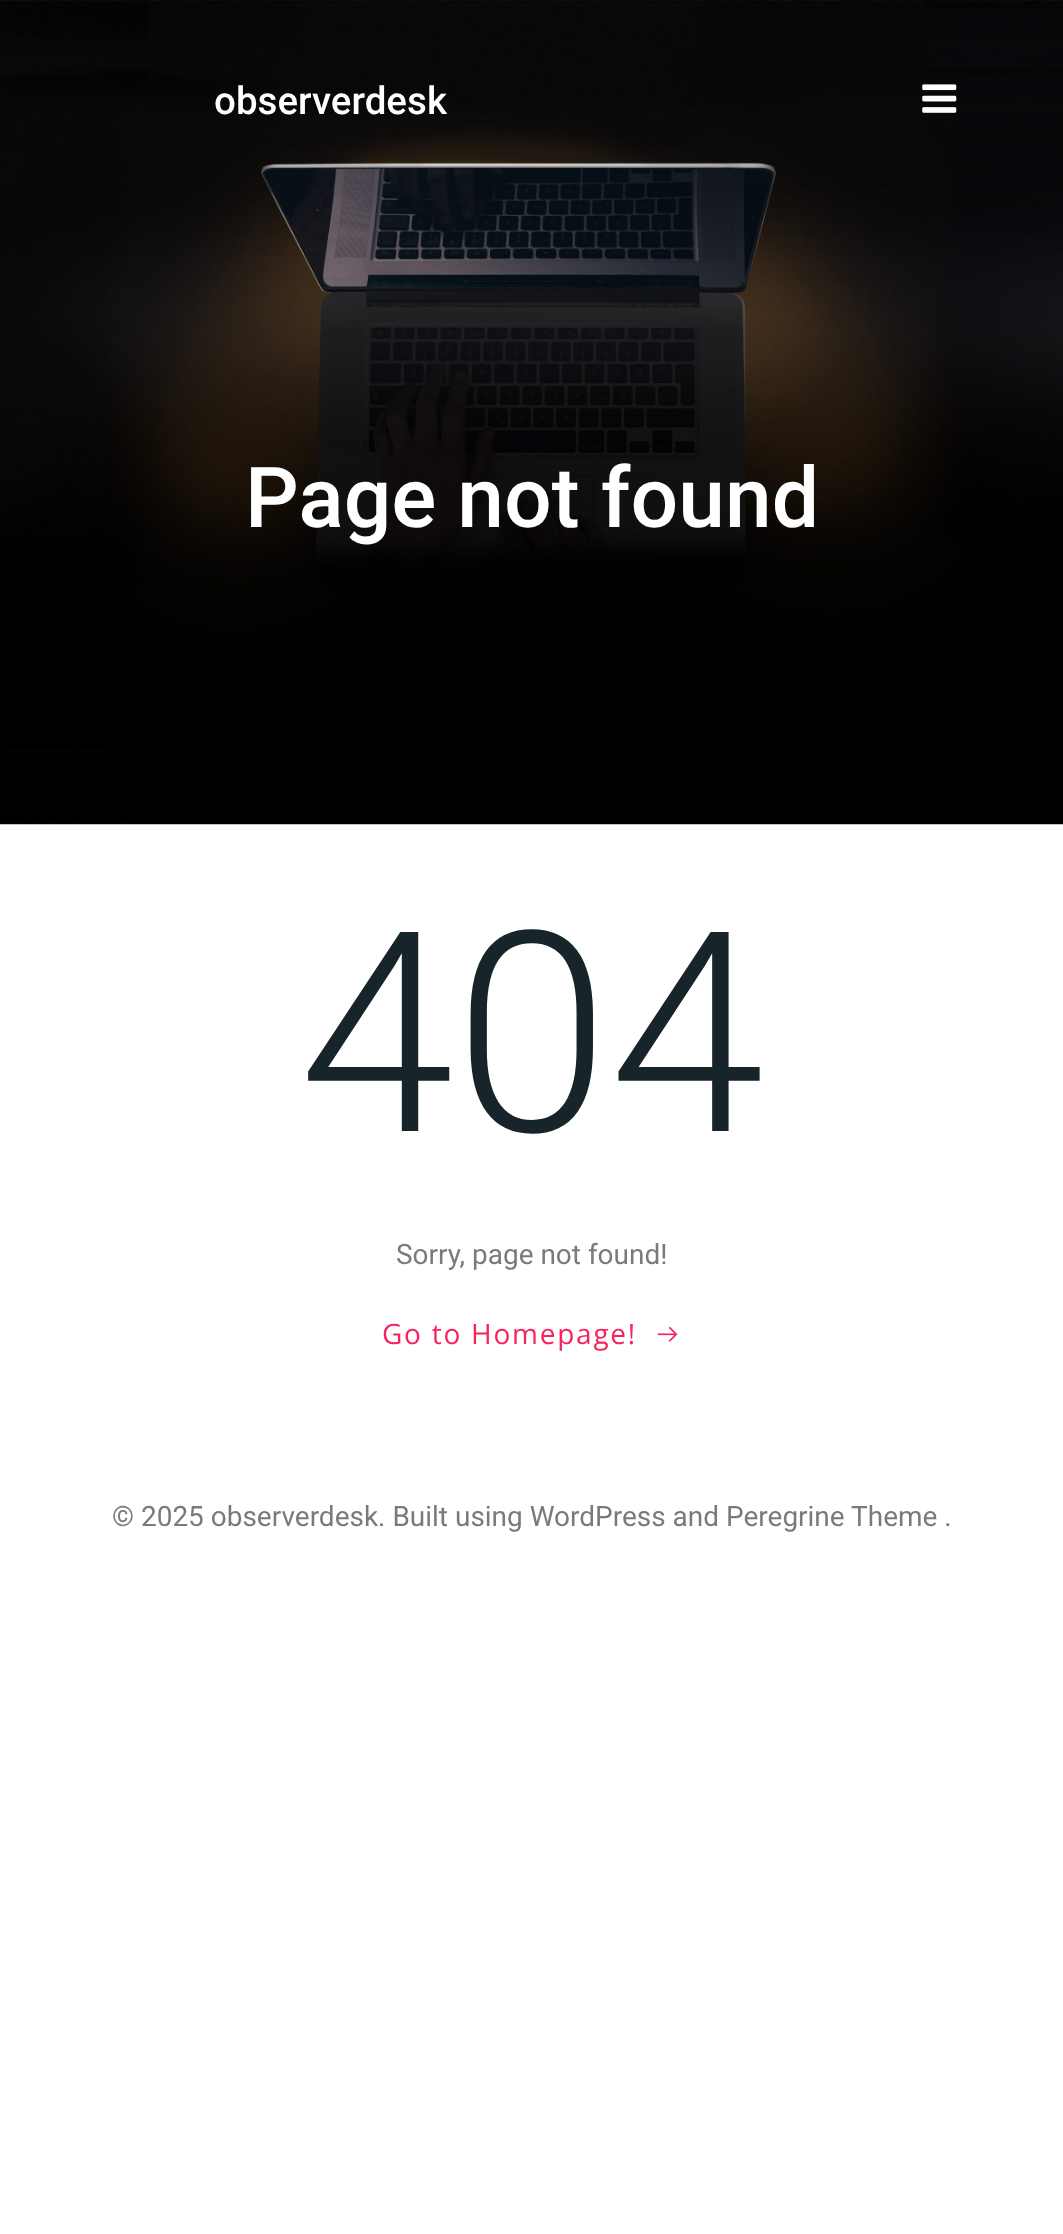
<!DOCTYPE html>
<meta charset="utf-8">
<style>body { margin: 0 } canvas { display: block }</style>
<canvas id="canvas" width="1063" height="2234"></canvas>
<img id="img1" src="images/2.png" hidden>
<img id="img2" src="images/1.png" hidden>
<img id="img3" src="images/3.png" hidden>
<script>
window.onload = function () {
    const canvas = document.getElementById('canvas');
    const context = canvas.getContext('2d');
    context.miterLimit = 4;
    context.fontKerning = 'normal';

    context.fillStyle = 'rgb(255, 255, 255)';
    context.fillRect(0, 0, 1063, 2234);
    context.drawImage(document.getElementById('img1'), 0, 0, 1063, 825);
    context.drawImage(document.getElementById('img2'), 922, 84, 35, 29);
    context.drawImage(document.getElementById('img3'), 657, 1326, 21, 16);
    context.font = '500 38.5px Roboto';
    context.fillText('observerdesk', 214, 114);
    context.font = '500 84px Roboto';
    context.fillText('Page not found', 245, 527);
    context.font = '300 280px Roboto';
    context.fillStyle = 'rgb(23, 37, 42)';
    context.fillText('404', 299, 1131);
    context.font = '28px Roboto';
    context.fillStyle = 'rgb(122, 122, 122)';
    context.fillText('Sorry, page not found!', 396, 1264);
    context.letterSpacing = '1.75px';
    context.font = '28px Open Sans';
    context.fillStyle = 'rgb(247, 35, 91)';
    context.fillText('Go to Homepage!', 382, 1344);
    context.letterSpacing = '0px';
    context.font = '28px Roboto';
    context.fillStyle = 'rgb(122, 122, 122)';
    context.fillText('© 2025 observerdesk. Built using WordPress and Peregrine Theme .', 112, 1526);
};
</script>
